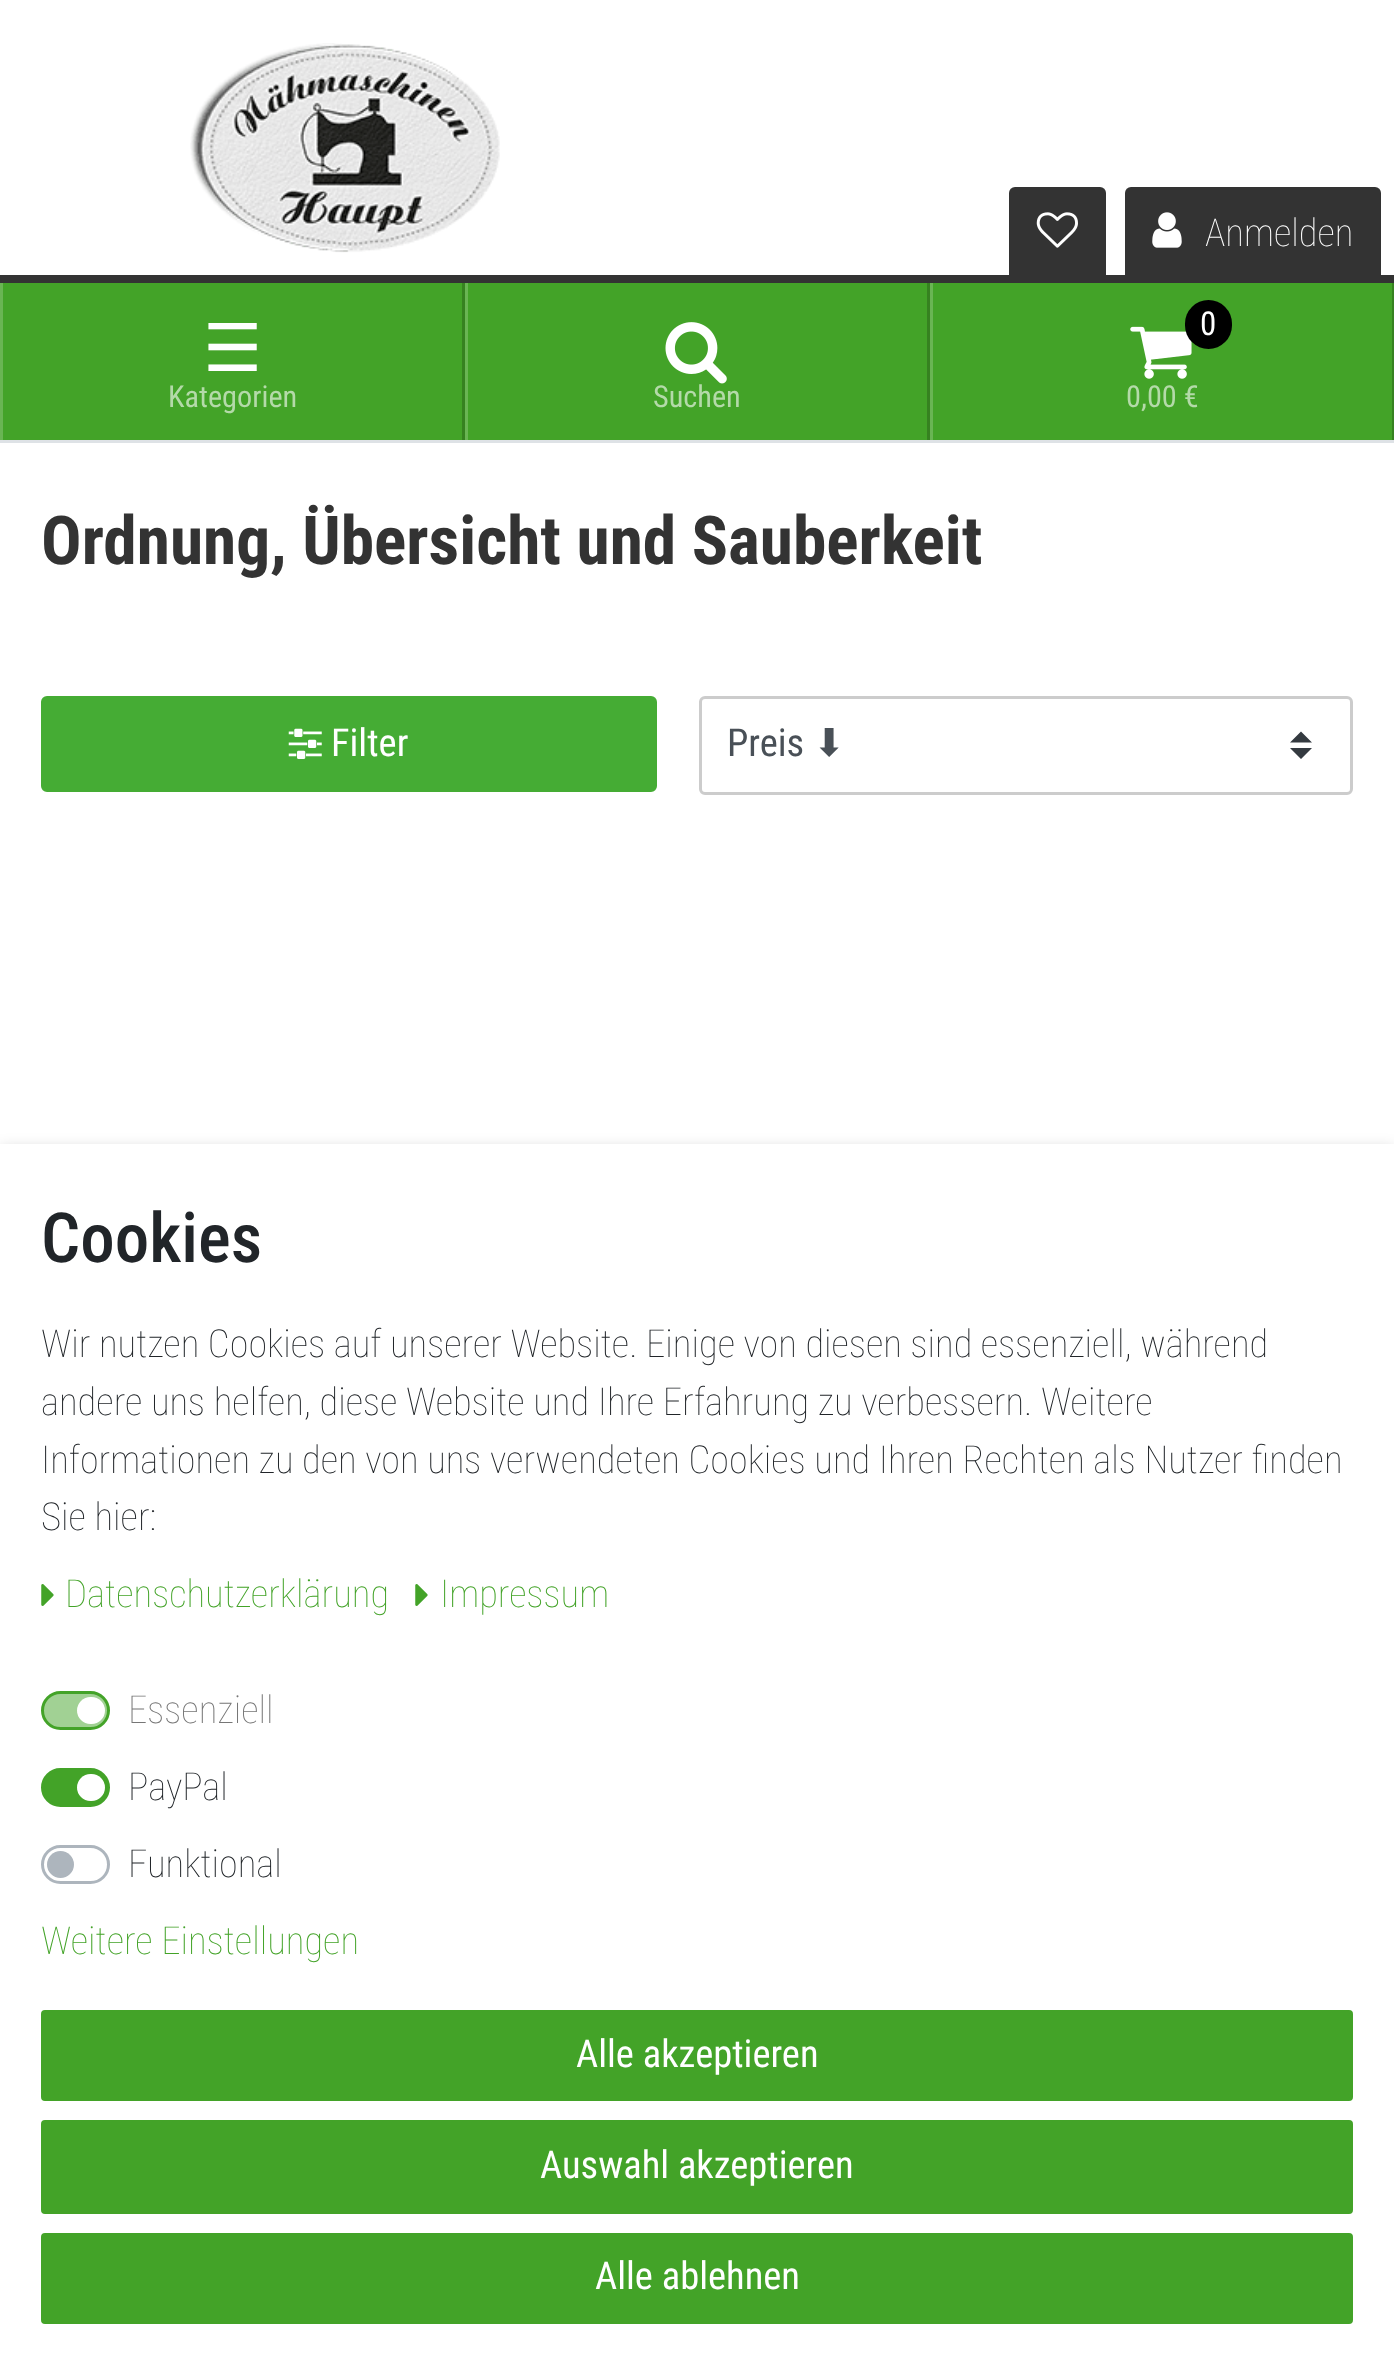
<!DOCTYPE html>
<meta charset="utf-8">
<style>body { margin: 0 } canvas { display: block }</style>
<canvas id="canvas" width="1394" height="2360"></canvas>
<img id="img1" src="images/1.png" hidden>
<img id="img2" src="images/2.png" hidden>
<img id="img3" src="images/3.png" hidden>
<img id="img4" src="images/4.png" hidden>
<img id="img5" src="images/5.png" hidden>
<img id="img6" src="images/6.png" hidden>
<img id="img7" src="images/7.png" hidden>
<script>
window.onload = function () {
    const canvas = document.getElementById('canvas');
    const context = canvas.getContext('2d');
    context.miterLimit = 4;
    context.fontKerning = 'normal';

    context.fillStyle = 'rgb(255, 255, 255)';
    context.fillRect(0, 0, 1394, 2360);
    context.fillStyle = 'rgb(51, 51, 51)';
    context.fillRect(0, 275, 1394, 8);
    context.drawImage(document.getElementById('img1'), 190, 43, 310, 210);
    context.beginPath();
    context.roundRect(1009, 187, 97, 91, [6, 6, 0, 0]);
    context.fill();
    context.drawImage(document.getElementById('img2'), 1036, 212, 42, 36);
    context.beginPath();
    context.roundRect(1125, 187, 256, 91, [6, 6, 0, 0]);
    context.fill();
    context.drawImage(document.getElementById('img3'), 1152, 212, 30, 36);
    context.fillStyle = 'rgb(67, 163, 40)';
    context.fillRect(3, 283, 1389, 157);
    context.fillStyle = 'rgb(222, 226, 230)';
    context.fillRect(0, 440, 1394, 3);
    context.fillStyle = 'rgb(54, 130, 32)';
    context.fillRect(462, 283, 3, 157);
    context.fillStyle = 'rgb(105, 181, 83)';
    context.fillRect(0, 283, 3, 157);
    context.fillStyle = 'rgb(54, 130, 32)';
    context.fillRect(927, 283, 3, 157);
    context.fillStyle = 'rgb(105, 181, 83)';
    context.fillRect(465, 283, 3, 157);
    context.drawImage(document.getElementById('img4'), 665, 322, 62, 62);
    context.fillStyle = 'rgb(54, 130, 32)';
    context.fillRect(1392, 283, 2, 157);
    context.fillStyle = 'rgb(105, 181, 83)';
    context.fillRect(930, 283, 3, 157);
    context.drawImage(document.getElementById('img5'), 1130, 326, 62, 53);
    context.fillStyle = 'rgb(0, 0, 0)';
    context.beginPath();
    context.roundRect(1185, 300, 47, 49, 23.5);
    context.fill();
    context.fillStyle = 'rgb(69, 172, 52)';
    context.beginPath();
    context.roundRect(44, 699, 610, 90, 3);
    context.fill();
    context.strokeStyle = 'rgb(69, 172, 52)';
    context.lineWidth = 6;
    context.stroke();
    context.drawImage(document.getElementById('img6'), 288, 728, 34, 31);
    context.fillStyle = 'rgb(52, 58, 64)';
    context.beginPath();
    context.moveTo(1301, 731.5);
    context.lineTo(1290, 742.5);
    context.lineTo(1312, 742.5);
    context.closePath();
    context.moveTo(1301, 759);
    context.lineTo(1290, 748);
    context.lineTo(1312, 748);
    context.closePath();
    context.fill();
    context.beginPath();
    context.roundRect(700.5, 697.5, 651, 96, 4.5);
    context.strokeStyle = 'rgb(204, 204, 204)';
    context.lineWidth = 3;
    context.stroke();
    context.fillStyle = 'rgba(0, 0, 0, 0.15)';
    context.filter = 'blur(7px)';
    context.beginPath();
    context.rect(0, 1147, 1394, 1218);
    context.fill();
    context.filter = 'none';
    context.fillStyle = 'rgb(255, 255, 255)';
    context.fillRect(0, 1144, 1394, 1216);
    context.drawImage(document.getElementById('img7'), 41, 1584, 13, 22);
    context.drawImage(document.getElementById('img7'), 415, 1584, 13, 22);
    context.fillStyle = 'rgb(161, 209, 148)';
    context.beginPath();
    context.roundRect(42.5, 1692.5, 66, 36, 18);
    context.fill();
    context.strokeStyle = 'rgb(67, 163, 40)';
    context.stroke();
    context.fillStyle = 'rgb(255, 255, 255)';
    context.beginPath();
    context.roundRect(77, 1697, 28, 27, 13.5);
    context.fill();
    context.fillStyle = 'rgb(67, 163, 40)';
    context.beginPath();
    context.roundRect(42.5, 1769.5, 66, 36, 18);
    context.fill();
    context.stroke();
    context.fillStyle = 'rgb(255, 255, 255)';
    context.beginPath();
    context.roundRect(77, 1774, 28, 27, 13.5);
    context.fill();
    context.beginPath();
    context.roundRect(42.5, 1846.5, 66, 36, 18);
    context.strokeStyle = 'rgb(173, 181, 189)';
    context.stroke();
    context.fillStyle = 'rgb(173, 181, 189)';
    context.beginPath();
    context.arc(60.5, 1864.5, 13.5, 0, 2 * Math.PI);
    context.fill();
    context.fillStyle = 'rgb(67, 163, 40)';
    context.beginPath();
    context.roundRect(42.5, 2011.5, 1309, 88, 2.5);
    context.fill();
    context.strokeStyle = 'rgb(67, 163, 40)';
    context.stroke();
    context.beginPath();
    context.roundRect(42.5, 2121.5, 1309, 91, 2.5);
    context.fill();
    context.stroke();
    context.beginPath();
    context.roundRect(42.5, 2234.5, 1309, 88, 2.5);
    context.fill();
    context.stroke();
    context.font = '100 38.5px Roboto Condensed';
    context.fillStyle = 'rgb(255, 255, 255)';
    context.fillText('Anmelden', 1205, 246);
    context.font = '66px DejaVu Sans';
    context.fillText('☰', 203, 371);
    context.font = '30.25px Roboto Condensed';
    context.fillStyle = 'rgb(180, 218, 169)';
    context.fillText('Kategorien', 168, 407);
    context.fillText('Suchen', 653, 407);
    context.font = '33px Roboto Condensed';
    context.fillStyle = 'rgb(255, 255, 255)';
    context.fillText('0', 1200, 335);
    context.font = '30.25px Roboto Condensed';
    context.fillStyle = 'rgb(180, 218, 169)';
    context.fillText('0,00 €', 1126, 407);
    context.font = 'bold 67.4px Roboto Condensed';
    context.fillStyle = 'rgb(51, 51, 51)';
    context.fillText('Ordnung, Übersicht und Sauberkeit', 41, 564);
    context.font = '38.5px Roboto Condensed';
    context.fillStyle = 'rgb(255, 255, 255)';
    context.fillText('Filter', 331, 756);
    context.fillStyle = 'rgb(73, 80, 87)';
    context.fillText('Preis', 727, 756);
    context.font = '38.5px DejaVu Sans';
    context.fillText('⬇', 813, 756);
    context.font = '500 69px Roboto Condensed';
    context.fillStyle = 'rgb(33, 37, 41)';
    context.fillText('Cookies', 41, 1262);
    context.font = '100 38.5px Roboto Condensed';
    context.fillText('Wir nutzen Cookies auf unserer Website. Einige von diesen sind essenziell, während', 41, 1357);
    context.fillText('andere uns helfen, diese Website und Ihre Erfahrung zu verbessern. Weitere', 41, 1415);
    context.fillText('Informationen zu den von uns verwendeten Cookies und Ihren Rechten als Nutzer finden', 41, 1473);
    context.fillText('Sie hier:', 41, 1530);
    context.fillStyle = 'rgb(67, 163, 40)';
    context.fillText('Datenschutzerklärung', 65, 1607);
    context.fillText('Impressum', 440, 1607);
    context.fillStyle = 'rgb(118, 118, 118)';
    context.fillText('Essenziell', 128, 1723);
    context.fillStyle = 'rgb(33, 37, 41)';
    context.fillText('PayPal', 128, 1800);
    context.fillText('Funktional', 128, 1877);
    context.fillStyle = 'rgb(67, 163, 40)';
    context.fillText('Weitere Einstellungen', 41, 1954);
    context.font = '38.5px Roboto Condensed';
    context.fillStyle = 'rgb(255, 255, 255)';
    context.fillText('Alle akzeptieren', 576, 2067);
    context.fillText('Auswahl akzeptieren', 540, 2178);
    context.fillText('Alle ablehnen', 595, 2289);
};
</script>
